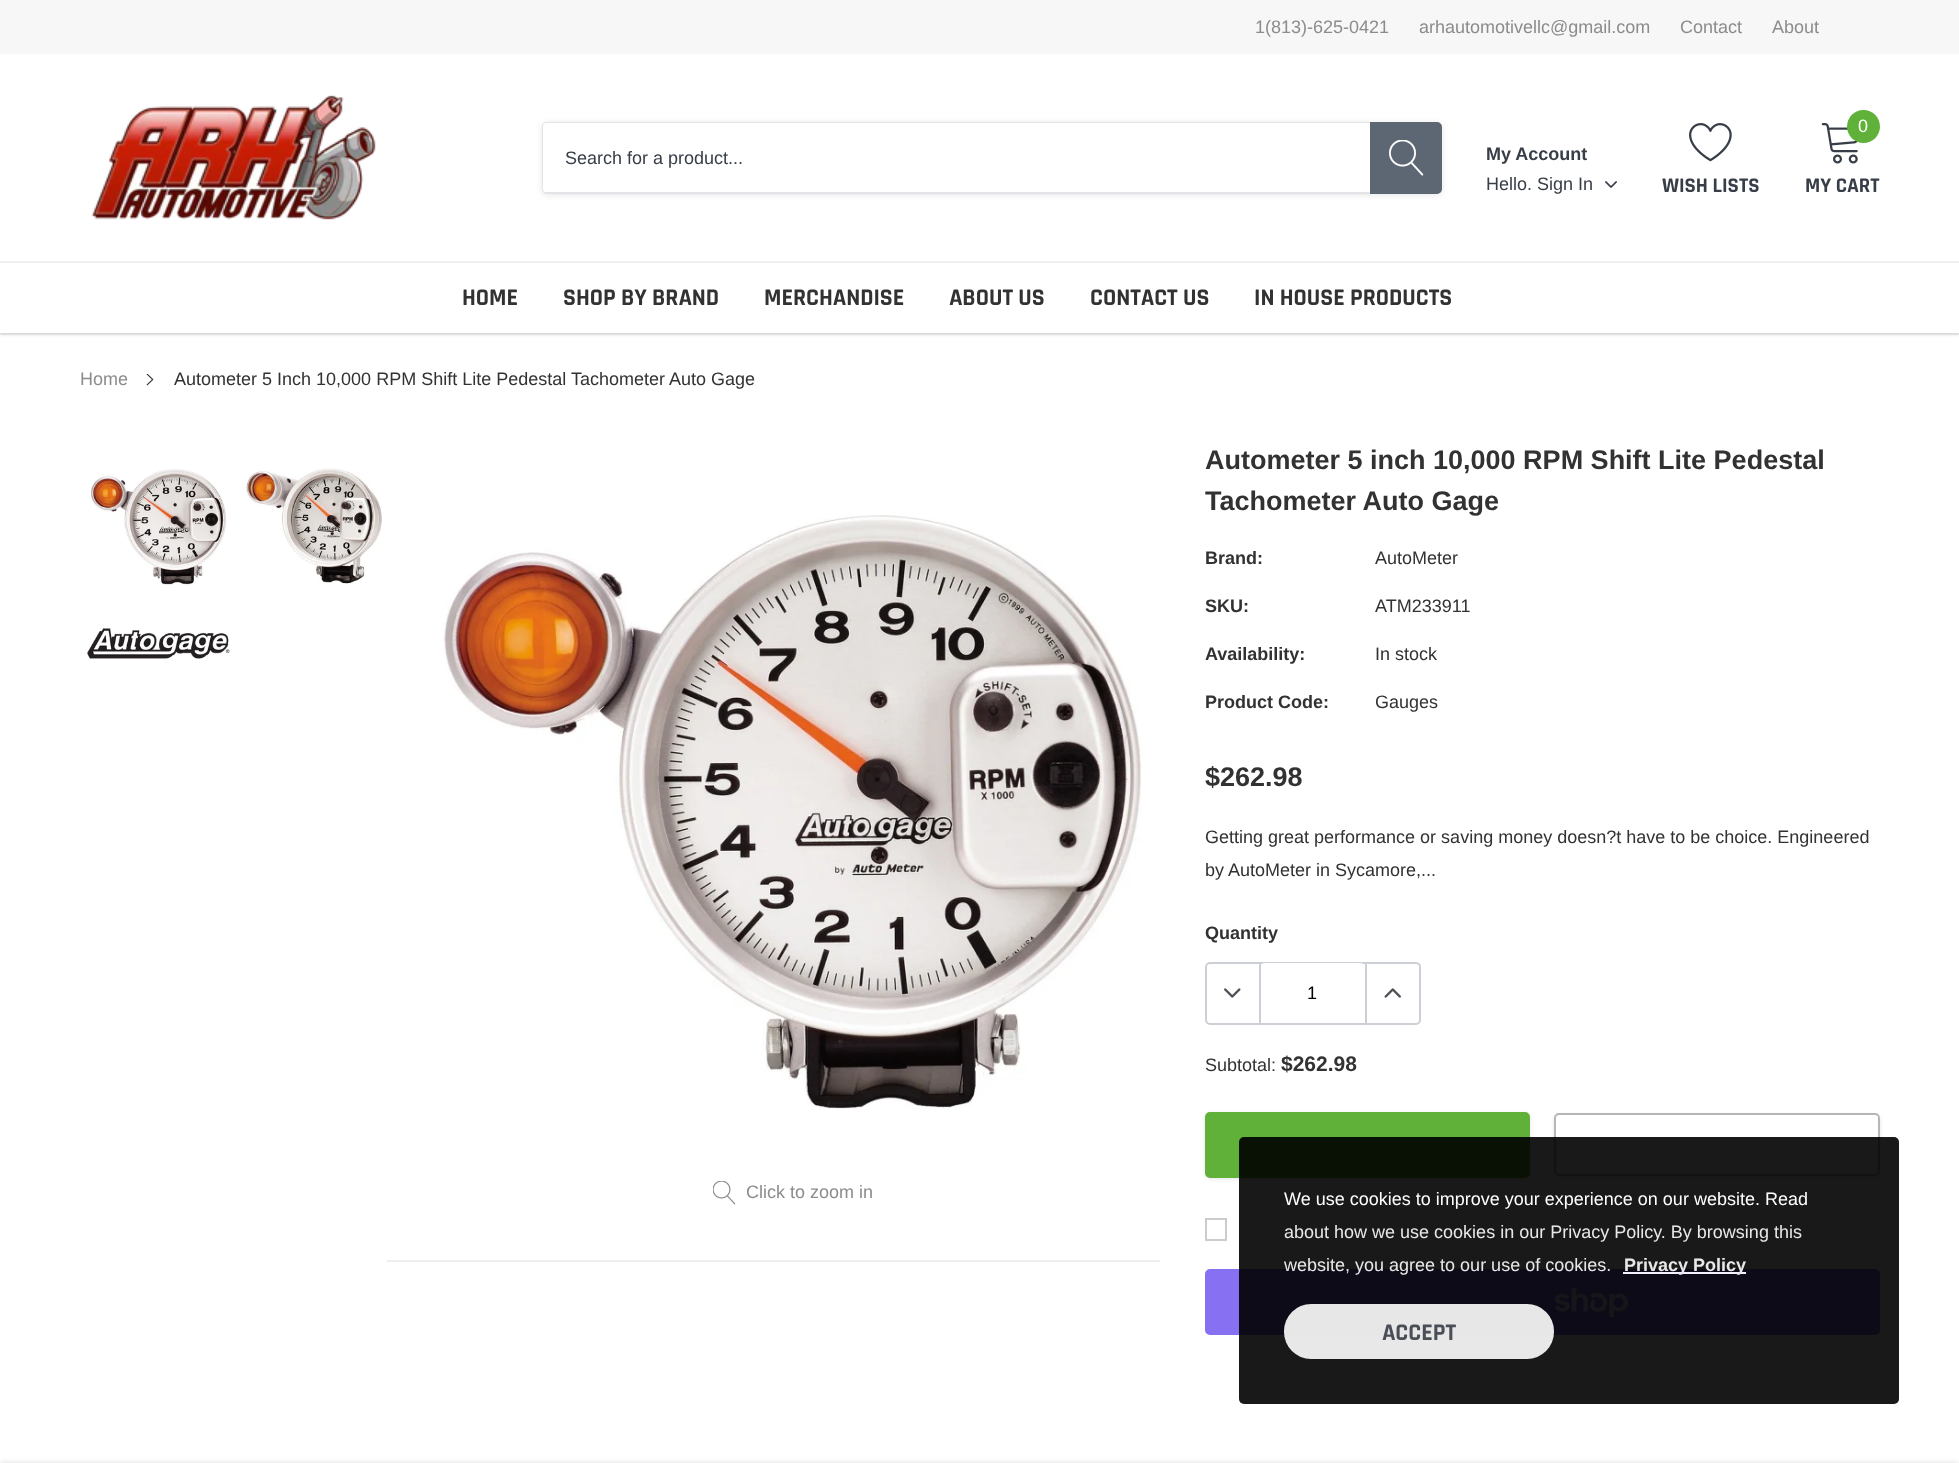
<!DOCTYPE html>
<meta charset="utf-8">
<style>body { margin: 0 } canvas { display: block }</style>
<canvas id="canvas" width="1959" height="1463"></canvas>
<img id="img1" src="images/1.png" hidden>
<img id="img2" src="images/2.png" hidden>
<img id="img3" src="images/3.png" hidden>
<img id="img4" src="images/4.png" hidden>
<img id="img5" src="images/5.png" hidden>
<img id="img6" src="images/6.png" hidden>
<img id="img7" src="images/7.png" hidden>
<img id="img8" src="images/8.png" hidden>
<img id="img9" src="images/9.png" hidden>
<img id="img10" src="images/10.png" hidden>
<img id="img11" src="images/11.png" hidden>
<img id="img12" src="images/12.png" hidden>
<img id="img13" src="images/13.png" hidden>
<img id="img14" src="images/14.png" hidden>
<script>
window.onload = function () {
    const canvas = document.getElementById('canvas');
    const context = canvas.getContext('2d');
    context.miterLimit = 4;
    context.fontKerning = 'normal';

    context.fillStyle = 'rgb(255, 255, 255)';
    context.fillRect(0, 0, 1959, 1463);
    context.fillStyle = 'rgba(0, 0, 0, 0.1)';
    context.filter = 'blur(1.5px)';
    context.beginPath();
    context.rect(0, 2, 1959, 333);
    context.fill();
    context.filter = 'none';
    context.strokeStyle = 'rgba(0, 0, 0, 0.06)';
    context.lineWidth = 2;
    context.strokeRect(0, 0, 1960, 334);
    context.fillStyle = 'rgb(255, 255, 255)';
    context.fillRect(0, 263, 1959, 70);
    context.fillStyle = 'rgb(247, 247, 247)';
    context.fillRect(0, 0, 1959, 54);
    context.fillStyle = 'rgb(255, 255, 255)';
    context.fillRect(0, 54, 1959, 207);
    context.drawImage(document.getElementById('img1'), 91, 95, 285, 125);
    context.fillStyle = 'rgba(0, 0, 0, 0.1)';
    context.filter = 'blur(3px)';
    context.beginPath();
    context.roundRect(542, 123, 900, 72, 5);
    context.fill();
    context.filter = 'none';
    context.fillStyle = 'rgb(255, 255, 255)';
    context.beginPath();
    context.roundRect(542, 122, 900, 72, 5);
    context.fill();
    context.fillStyle = 'rgb(226, 228, 232)';
    context.beginPath();
    context.moveTo(546, 122);
    context.lineTo(1370, 122);
    context.lineTo(1370, 194);
    context.lineTo(546, 194);
    context.bezierCurveTo(544, 194, 542, 191, 542, 189);
    context.lineTo(542, 126);
    context.bezierCurveTo(542, 124, 544, 122, 546, 122);
    context.closePath();
    context.moveTo(546, 123);
    context.lineTo(1370, 123);
    context.lineTo(1370, 192);
    context.lineTo(546, 192);
    context.bezierCurveTo(544, 192, 543, 191, 543, 189);
    context.lineTo(543, 126);
    context.bezierCurveTo(543, 124, 544, 123, 546, 123);
    context.closePath();
    context.fill('evenodd');
    context.fillStyle = 'rgb(93, 102, 115)';
    context.beginPath();
    context.roundRect(1371, 123, 70, 70, [0, 4, 4, 0]);
    context.fill();
    context.strokeStyle = 'rgb(93, 102, 115)';
    context.stroke();
    context.drawImage(document.getElementById('img2'), 1389, 140, 35, 36);
    context.drawImage(document.getElementById('img3'), 1605, 181, 12, 7);
    context.drawImage(document.getElementById('img4'), 1821, 123, 37, 41);
    context.fillStyle = 'rgb(95, 177, 57)';
    context.beginPath();
    context.arc(1863.5, 126.5, 16.5, 0, 2 * Math.PI);
    context.fill();
    context.drawImage(document.getElementById('img5'), 1689, 123, 43, 39);
    context.fillStyle = 'rgb(240, 240, 240)';
    context.fillRect(0, 261, 1959, 2);
    context.drawImage(document.getElementById('img6'), 146, 374, 8, 12);
    context.beginPath();
    context.roundRect(1206, 963, 214, 61, 4);
    context.strokeStyle = 'rgb(204, 207, 214)';
    context.stroke();
    context.fillStyle = 'rgb(255, 255, 255)';
    context.beginPath();
    context.roundRect(1260, 963, 105, 60, 5);
    context.fill();
    context.fillStyle = 'rgb(204, 207, 214)';
    context.fillRect(1259, 963, 2, 60);
    context.drawImage(document.getElementById('img7'), 1224, 988, 17, 10);
    context.fillRect(1365, 963, 2, 60);
    context.drawImage(document.getElementById('img8'), 1384, 988, 17, 10);
    context.fillStyle = 'rgba(0, 0, 0, 0.1)';
    context.filter = 'blur(2px)';
    context.beginPath();
    context.roundRect(1205, 1113, 325, 66, 5);
    context.fill();
    context.filter = 'none';
    context.fillStyle = 'rgb(95, 177, 57)';
    context.beginPath();
    context.roundRect(1206, 1113, 323, 64, 4);
    context.fill();
    context.strokeStyle = 'rgb(95, 177, 57)';
    context.stroke();
    context.save();
    context.beginPath();
    context.moveTo(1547, 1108);
    context.lineTo(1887, 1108);
    context.lineTo(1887, 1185);
    context.lineTo(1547, 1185);
    context.closePath();
    context.moveTo(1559, 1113);
    context.lineTo(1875, 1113);
    context.bezierCurveTo(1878, 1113, 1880, 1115, 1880, 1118);
    context.lineTo(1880, 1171);
    context.bezierCurveTo(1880, 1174, 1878, 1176, 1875, 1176);
    context.lineTo(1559, 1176);
    context.bezierCurveTo(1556, 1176, 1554, 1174, 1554, 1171);
    context.lineTo(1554, 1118);
    context.bezierCurveTo(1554, 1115, 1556, 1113, 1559, 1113);
    context.closePath();
    context.clip('evenodd');
    context.fillStyle = 'rgba(0, 0, 0, 0.1)';
    context.filter = 'blur(2px)';
    context.beginPath();
    context.roundRect(1554, 1115, 326, 63, 5);
    context.fill();
    context.filter = 'none';
    context.restore();
    context.beginPath();
    context.roundRect(1555, 1114, 324, 61, 4);
    context.strokeStyle = 'rgb(182, 182, 182)';
    context.stroke();
    context.strokeStyle = 'rgb(204, 204, 204)';
    context.strokeRect(1206, 1219, 20, 21);
    context.fillStyle = 'rgb(135, 112, 241)';
    context.beginPath();
    context.roundRect(1205, 1269, 675, 66, 5);
    context.fill();
    context.drawImage(document.getElementById('img9'), 1554, 1287, 74, 30);
    context.drawImage(document.getElementById('img10'), 90, 469, 137, 117);
    context.drawImage(document.getElementById('img11'), 246, 468, 136, 116);
    context.drawImage(document.getElementById('img12'), 87, 628, 143, 31);
    context.drawImage(document.getElementById('img13'), 443, 515, 699, 594);
    context.drawImage(document.getElementById('img14'), 713, 1181, 23, 24);
    context.fillStyle = 'rgb(238, 238, 238)';
    context.fillRect(387, 1260, 773, 2);
    context.fillStyle = 'rgba(0, 0, 0, 0.2)';
    context.filter = 'blur(3px)';
    context.beginPath();
    context.rect(0, 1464, 1959, 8);
    context.fill();
    context.filter = 'none';
    context.fillStyle = 'rgba(0, 0, 0, 0.9)';
    context.beginPath();
    context.roundRect(1239, 1137, 660, 267, 5);
    context.fill();
    context.fillStyle = 'rgb(243, 241, 254)';
    context.fillRect(1623, 1272, 123, 2);
    context.fillStyle = 'rgba(255, 255, 255, 0.9)';
    context.beginPath();
    context.roundRect(1284, 1304, 270, 55, 27);
    context.fill();
    context.font = '18px Arimo';
    context.fillStyle = 'rgb(140, 140, 140)';
    context.fillText('1(813)-625-0421', 1255, 33);
    context.fillText('arhautomotivellc@gmail.com', 1419, 33);
    context.fillText('Contact', 1680, 33);
    context.fillText('About', 1772, 33);
    context.fillStyle = 'rgb(56, 62, 71)';
    context.fillText('Search for a product...', 565, 164);
    context.font = 'bold 18px Arimo';
    context.fillText('My Account', 1486, 160);
    context.font = '18px Arimo';
    context.fillText('Hello. Sign In', 1486, 190);
    context.fillStyle = 'rgb(255, 255, 255)';
    context.fillText('0', 1858, 132);
    context.font = 'bold 21px Rajdhani';
    context.fillStyle = 'rgb(56, 62, 71)';
    context.fillText('MY CART', 1805, 192);
    context.fillText('WISH LISTS', 1662, 192);
    context.font = 'bold 24px Rajdhani';
    context.fillStyle = 'rgb(50, 50, 50)';
    context.fillText('HOME', 462, 305);
    context.fillText('SHOP BY BRAND', 563, 305);
    context.fillText('MERCHANDISE', 764, 305);
    context.fillText('ABOUT US', 949, 305);
    context.fillText('CONTACT US', 1090, 305);
    context.fillText('IN HOUSE PRODUCTS', 1254, 305);
    context.font = '18px Arimo';
    context.fillStyle = 'rgb(140, 140, 140)';
    context.fillText('Home', 80, 385);
    context.fillStyle = 'rgb(50, 50, 50)';
    context.fillText('Autometer 5 Inch 10,000 RPM Shift Lite Pedestal Tachometer Auto Gage', 174, 385);
    context.font = 'bold 27px Arimo';
    context.fillText('Autometer 5 inch 10,000 RPM Shift Lite Pedestal', 1205, 469);
    context.fillText('Tachometer Auto Gage', 1205, 510);
    context.font = 'bold 18px Arimo';
    context.fillText('Brand:', 1205, 564);
    context.font = '18px Arimo';
    context.fillText('AutoMeter', 1375, 564);
    context.font = 'bold 18px Arimo';
    context.fillText('SKU:', 1205, 612);
    context.font = '18px Arimo';
    context.fillText('ATM233911', 1375, 612);
    context.font = 'bold 18px Arimo';
    context.fillText('Availability:', 1205, 660);
    context.font = '18px Arimo';
    context.fillText('In stock', 1375, 660);
    context.font = 'bold 18px Arimo';
    context.fillText('Product Code:', 1205, 708);
    context.font = '18px Arimo';
    context.fillText('Gauges', 1375, 708);
    context.font = 'bold 27px Arimo';
    context.fillText('$262.98', 1205, 786);
    context.font = '18px Arimo';
    context.fillText('Getting great performance or saving money doesn?t have to be choice. Engineered', 1205, 843);
    context.fillText('by AutoMeter in Sycamore,...', 1205, 876);
    context.font = 'bold 18px Arimo';
    context.fillText('Quantity', 1205, 939);
    context.font = '18px Arimo';
    context.fillStyle = 'rgb(0, 0, 0)';
    context.fillText('1', 1307, 999);
    context.fillStyle = 'rgb(50, 50, 50)';
    context.fillText('Subtotal:', 1205, 1071);
    context.font = 'bold 21px Arimo';
    context.fillText('$262.98', 1281, 1071);
    context.font = '18px Arimo';
    context.fillStyle = 'rgb(140, 140, 140)';
    context.fillText('Click to zoom in', 746, 1198);
    context.fillStyle = 'rgb(255, 255, 255)';
    context.fillText('We use cookies to improve your experience on our website. Read', 1284, 1205);
    context.fillStyle = 'rgb(232, 232, 232)';
    context.fillText('about how we use cookies in our Privacy Policy. By browsing this', 1284, 1238);
    context.fillText('website, you agree to our use of cookies.', 1284, 1271);
    context.font = 'bold 18px Arimo';
    context.fillText('Privacy Policy', 1624, 1271);
    context.font = 'bold 24px Rajdhani';
    context.fillStyle = 'rgb(74, 79, 87)';
    context.fillText('ACCEPT', 1382, 1340);
};
</script>
